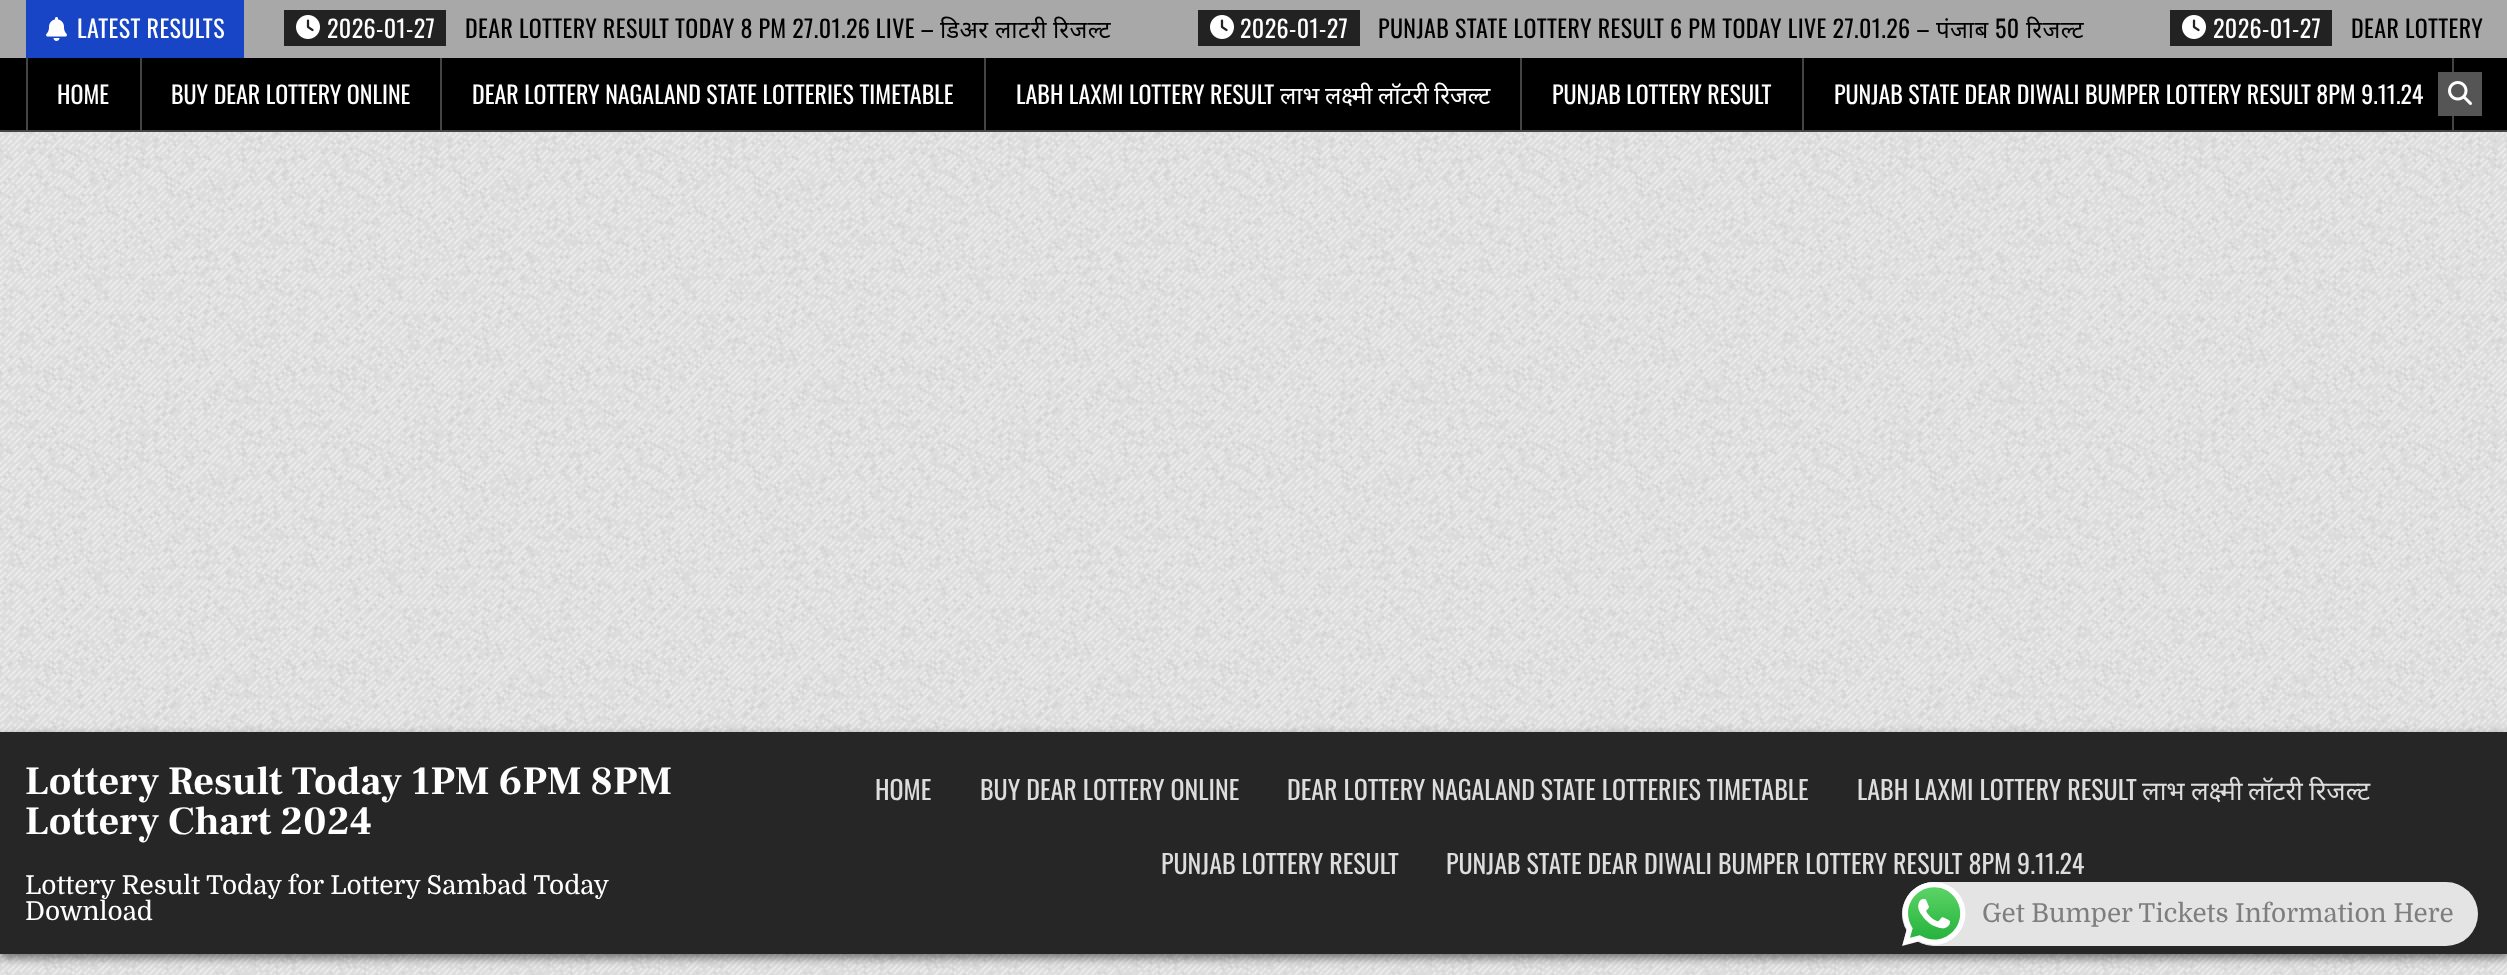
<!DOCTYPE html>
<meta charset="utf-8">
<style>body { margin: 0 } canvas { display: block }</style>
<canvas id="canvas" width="2507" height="975"></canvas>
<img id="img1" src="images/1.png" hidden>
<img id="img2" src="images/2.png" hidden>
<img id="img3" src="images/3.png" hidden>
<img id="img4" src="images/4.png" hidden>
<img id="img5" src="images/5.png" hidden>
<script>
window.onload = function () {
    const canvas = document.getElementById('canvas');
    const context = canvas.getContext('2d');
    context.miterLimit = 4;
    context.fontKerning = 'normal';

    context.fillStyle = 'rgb(255, 255, 255)';
    context.fillRect(0, 0, 2507, 975);
    context.drawImage(document.getElementById('img1'), 0, 132, 2507, 843);
    context.fillStyle = 'rgb(168, 168, 168)';
    context.fillRect(0, 0, 2507, 58);
    context.fillStyle = 'rgb(23, 69, 197)';
    context.fillRect(26, 0, 218, 58);
    context.drawImage(document.getElementById('img2'), 46, 17, 21, 24);
    context.fillStyle = 'rgb(34, 34, 34)';
    context.fillRect(284, 10, 162, 36);
    context.drawImage(document.getElementById('img3'), 296, 15, 24, 24);
    context.fillRect(1198, 10, 162, 36);
    context.drawImage(document.getElementById('img3'), 1210, 15, 24, 24);
    context.fillRect(2170, 10, 162, 36);
    context.drawImage(document.getElementById('img3'), 2182, 15, 24, 24);
    context.fillStyle = 'rgb(0, 0, 0)';
    context.fillRect(0, 58, 2507, 72);
    context.fillStyle = 'rgb(68, 68, 68)';
    context.fillRect(0, 130, 2507, 2);
    context.fillRect(140, 58, 2, 72);
    context.fillRect(26, 58, 2, 72);
    context.fillRect(440, 58, 2, 72);
    context.fillRect(984, 58, 2, 72);
    context.fillRect(1520, 58, 2, 72);
    context.fillRect(1802, 58, 2, 72);
    context.fillRect(2452, 58, 2, 72);
    context.fillStyle = 'rgb(85, 85, 85)';
    context.fillRect(2438, 72, 44, 44);
    context.drawImage(document.getElementById('img4'), 2448, 81, 24, 24);
    context.fillStyle = 'rgba(0, 0, 0, 0.5)';
    context.filter = 'blur(5px)';
    context.beginPath();
    context.rect(0, 736, 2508, 222);
    context.fill();
    context.filter = 'none';
    context.fillStyle = 'rgb(38, 38, 38)';
    context.fillRect(0, 732, 2507, 222);
    context.fillStyle = 'rgb(228, 228, 228)';
    context.beginPath();
    context.roundRect(1902, 882, 576, 64, 32);
    context.fill();
    context.drawImage(document.getElementById('img5'), 1902, 882, 64, 64);
    context.letterSpacing = '0.4px';
    context.font = '24px Oswald';
    context.fillStyle = 'rgb(255, 255, 255)';
    context.fillText('LATEST RESULTS', 77, 38);
    context.fillText('2026-01-27', 327, 38);
    context.wordSpacing = '-0.25px';
    context.fillStyle = 'rgb(0, 0, 0)';
    context.fillText('DEAR LOTTERY RESULT TODAY 8 PM 27.01.26 LIVE –', 465, 38);
    context.wordSpacing = '0px';
    context.font = '24px Noto Sans';
    context.fillText('डिअर', 940, 38);
    context.fillText('लाटरी', 995, 38);
    context.fillText('रिजल्ट', 1053, 38);
    context.font = '24px Oswald';
    context.fillStyle = 'rgb(255, 255, 255)';
    context.fillText('2026-01-27', 1240, 38);
    context.wordSpacing = '-0.1px';
    context.fillStyle = 'rgb(0, 0, 0)';
    context.fillText('PUNJAB STATE LOTTERY RESULT 6 PM TODAY LIVE 27.01.26 –', 1378, 38);
    context.wordSpacing = '0px';
    context.font = '24px Noto Sans';
    context.fillText('पंजाब', 1936, 38);
    context.font = '24px Oswald';
    context.fillText('50', 1995, 38);
    context.font = '24px Noto Sans';
    context.fillText('रिजल्ट', 2026, 38);
    context.font = '24px Oswald';
    context.fillStyle = 'rgb(255, 255, 255)';
    context.fillText('2026-01-27', 2213, 38);
    context.wordSpacing = '-0.25px';
    context.fillStyle = 'rgb(0, 0, 0)';
    context.fillText('DEAR LOTTERY', 2351, 38);
    context.letterSpacing = '0px';
    context.wordSpacing = '0px';
    context.fillStyle = 'rgb(255, 255, 255)';
    context.fillText('HOME', 57, 104);
    context.fillText('BUY DEAR LOTTERY ONLINE', 171, 104);
    context.fillText('DEAR LOTTERY NAGALAND STATE LOTTERIES TIMETABLE', 472, 104);
    context.fillText('LABH LAXMI LOTTERY RESULT', 1016, 104);
    context.font = '24px Noto Sans';
    context.fillText('लाभ', 1280, 104);
    context.fillText('लक्ष्मी', 1325, 104);
    context.fillText('लॉटरी', 1378, 104);
    context.fillText('रिजल्ट', 1434, 104);
    context.font = '24px Oswald';
    context.fillText('PUNJAB LOTTERY RESULT', 1552, 104);
    context.fillText('PUNJAB STATE DEAR DIWALI BUMPER LOTTERY RESULT 8PM 9.11.24', 1834, 104);
    context.font = 'bold 40px Frank Ruhl Libre';
    context.fillText('Lottery Result Today 1PM 6PM 8PM', 25, 794);
    context.fillText('Lottery Chart 2024', 25, 834);
    context.font = '26px Domine';
    context.fillText('Lottery Result Today for Lottery Sambad Today', 25, 894);
    context.fillText('Download', 25, 920);
    context.font = '26px Oswald';
    context.fillStyle = 'rgb(221, 221, 221)';
    context.fillText('HOME', 875, 800);
    context.fillText('BUY DEAR LOTTERY ONLINE', 980, 800);
    context.fillText('DEAR LOTTERY NAGALAND STATE LOTTERIES TIMETABLE', 1287, 800);
    context.fillText('LABH LAXMI LOTTERY RESULT', 1857, 800);
    context.font = '26px Noto Sans';
    context.fillText('लाभ', 2142, 800);
    context.fillText('लक्ष्मी', 2191, 800);
    context.fillText('लॉटरी', 2248, 800);
    context.fillText('रिजल्ट', 2309, 800);
    context.font = '26px Oswald';
    context.fillText('PUNJAB LOTTERY RESULT', 1161, 874);
    context.fillText('PUNJAB STATE DEAR DIWALI BUMPER LOTTERY RESULT 8PM 9.11.24', 1446, 874);
    context.font = '26px Domine';
    context.fillStyle = 'rgb(127, 125, 125)';
    context.fillText('Get Bumper Tickets Information Here', 1982, 922);
};
</script>
